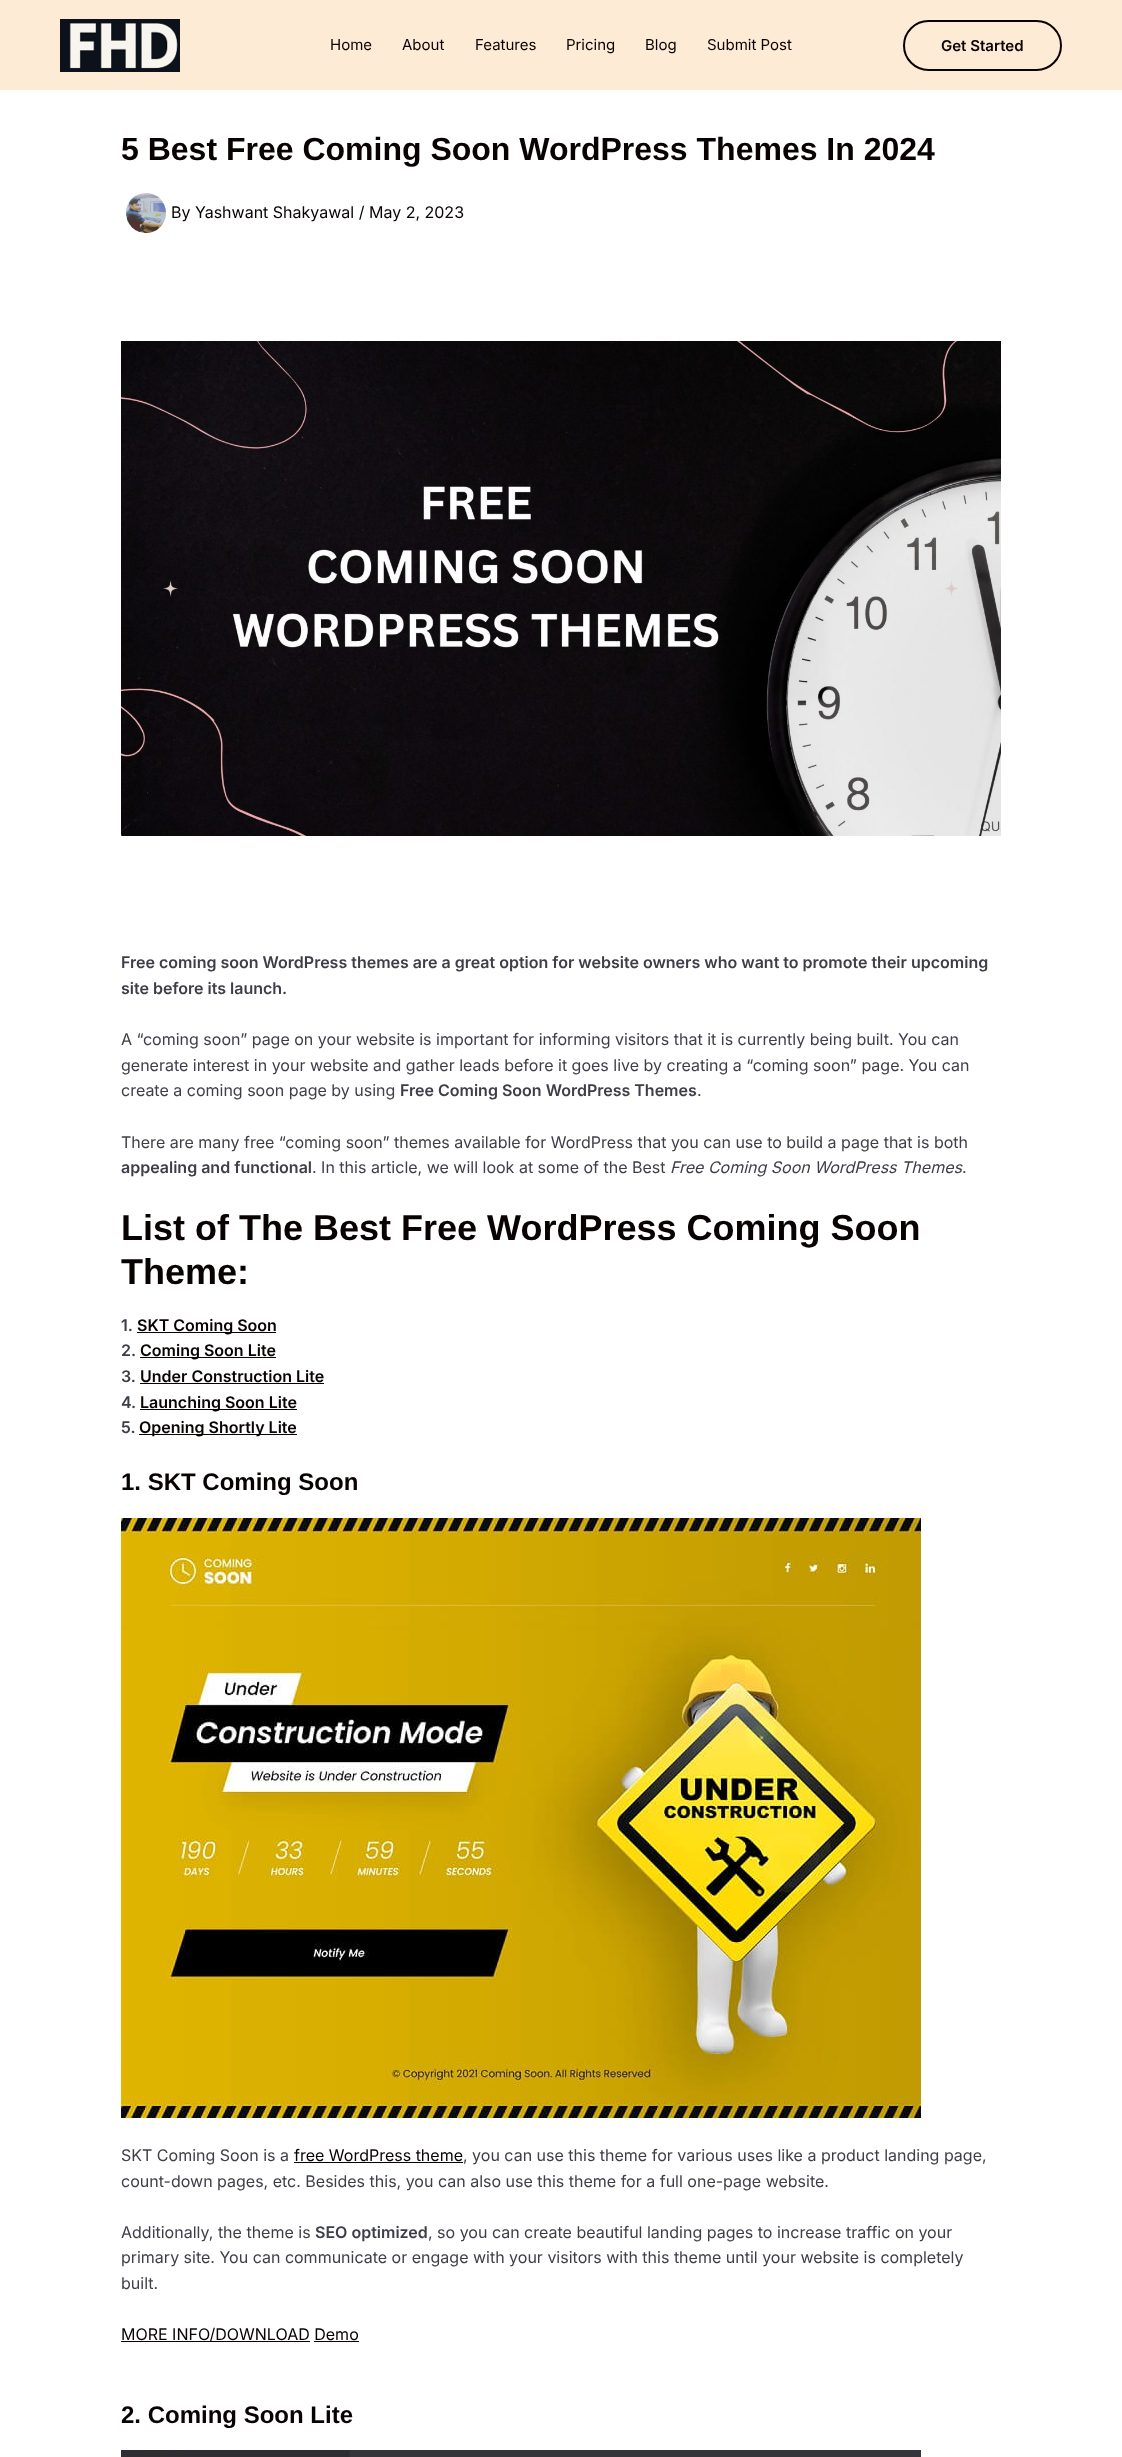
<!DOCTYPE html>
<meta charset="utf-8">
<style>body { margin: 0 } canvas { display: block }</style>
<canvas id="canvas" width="1122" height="2457"></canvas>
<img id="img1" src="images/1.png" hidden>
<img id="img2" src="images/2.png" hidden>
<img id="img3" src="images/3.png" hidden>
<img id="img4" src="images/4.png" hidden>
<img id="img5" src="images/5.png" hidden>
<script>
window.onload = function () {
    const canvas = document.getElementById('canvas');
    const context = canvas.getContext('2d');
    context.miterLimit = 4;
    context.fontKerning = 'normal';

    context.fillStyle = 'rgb(255, 255, 255)';
    context.fillRect(0, 0, 1122, 2457);
    context.fillStyle = 'rgb(254, 235, 214)';
    context.fillRect(0, 0, 1122, 90);
    context.drawImage(document.getElementById('img1'), 60, 19, 120, 53);
    context.beginPath();
    context.roundRect(904, 21, 157, 49, 24.5);
    context.strokeStyle = 'rgb(8, 2, 2)';
    context.lineWidth = 2;
    context.stroke();
    context.drawImage(document.getElementById('img2'), 126, 193, 40, 40);
    context.drawImage(document.getElementById('img3'), 121, 341, 880, 495);
    context.fillStyle = 'rgb(8, 2, 2)';
    context.fillRect(137, 1332, 139, 1);
    context.fillRect(140, 1357, 136, 1);
    context.fillRect(140, 1383, 184, 1);
    context.fillRect(140, 1409, 157, 1);
    context.fillRect(139, 1434, 158, 1);
    context.drawImage(document.getElementById('img4'), 121, 1518, 800, 600);
    context.fillRect(294, 2162, 169, 1);
    context.fillRect(121, 2341, 189, 1);
    context.fillRect(314, 2341, 45, 1);
    context.drawImage(document.getElementById('img5'), 121, 2450, 800, 7);
    context.font = '15px Inter';
    context.fillText('Home', 330, 50);
    context.fillText('About', 402, 50);
    context.fillText('Features', 475, 50);
    context.fillText('Pricing', 566, 50);
    context.fillText('Blog', 645, 50);
    context.fillText('Submit Post', 707, 50);
    context.font = '600 15px Inter';
    context.fillText('Get Started', 941, 51);
    context.font = 'bold 32px Liberation Sans';
    context.fillText('5 Best Free Coming Soon WordPress Themes In 2024', 121, 160);
    context.font = '16px Inter';
    context.fillText('By Yashwant Shakyawal / May 2, 2023', 171, 218);
    context.font = '600 16px Inter';
    context.fillStyle = 'rgb(61, 62, 71)';
    context.fillText('Free coming soon WordPress themes are a great option for website owners who want to promote their upcoming', 121, 968);
    context.fillText('site before its launch.', 121, 994);
    context.font = '16px Inter';
    context.fillText('A “coming soon” page on your website is important for informing visitors that it is currently being built. You can', 121, 1045);
    context.fillText('generate interest in your website and gather leads before it goes live by creating a “coming soon” page. You can', 121, 1071);
    context.fillText('create a coming soon page by using', 121, 1096);
    context.font = '600 16px Inter';
    context.fillText('Free Coming Soon WordPress Themes', 400, 1096);
    context.font = '16px Inter';
    context.fillText('.', 697, 1096);
    context.fillText('There are many free “coming soon” themes available for WordPress that you can use to build a page that is both', 121, 1148);
    context.font = '600 16px Inter';
    context.fillText('appealing and functional', 121, 1173);
    context.font = '16px Inter';
    context.fillText('. In this article, we will look at some of the Best', 312, 1173);
    context.font = 'italic 16px Inter';
    context.fillText('Free Coming Soon WordPress Themes', 670, 1173);
    context.font = '16px Inter';
    context.fillText('.', 962, 1173);
    context.font = 'bold 36px Liberation Sans';
    context.fillStyle = 'rgb(8, 2, 2)';
    context.fillText('List of The Best Free WordPress Coming Soon', 121, 1240);
    context.fillText('Theme:', 121, 1284);
    context.font = '600 16px Inter';
    context.fillStyle = 'rgb(61, 62, 71)';
    context.fillText('1.', 121, 1331);
    context.fillStyle = 'rgb(8, 2, 2)';
    context.fillText('SKT Coming Soon', 137, 1331);
    context.fillStyle = 'rgb(61, 62, 71)';
    context.fillText('2.', 121, 1356);
    context.fillStyle = 'rgb(8, 2, 2)';
    context.fillText('Coming Soon Lite', 140, 1356);
    context.fillStyle = 'rgb(61, 62, 71)';
    context.fillText('3.', 121, 1382);
    context.fillStyle = 'rgb(8, 2, 2)';
    context.fillText('Under Construction Lite', 140, 1382);
    context.fillStyle = 'rgb(61, 62, 71)';
    context.fillText('4.', 121, 1408);
    context.fillStyle = 'rgb(8, 2, 2)';
    context.fillText('Launching Soon Lite', 140, 1408);
    context.fillStyle = 'rgb(61, 62, 71)';
    context.fillText('5.', 121, 1433);
    context.fillStyle = 'rgb(8, 2, 2)';
    context.fillText('Opening Shortly Lite', 139, 1433);
    context.font = 'bold 24px Liberation Sans';
    context.fillText('1. SKT Coming Soon', 121, 1490);
    context.font = '16px Inter';
    context.fillStyle = 'rgb(61, 62, 71)';
    context.fillText('SKT Coming Soon is a', 121, 2161);
    context.fillStyle = 'rgb(8, 2, 2)';
    context.fillText('free WordPress theme', 294, 2161);
    context.fillStyle = 'rgb(61, 62, 71)';
    context.fillText(', you can use this theme for various uses like a product landing page,', 463, 2161);
    context.fillText('count-down pages, etc. Besides this, you can also use this theme for a full one-page website.', 121, 2187);
    context.fillText('Additionally, the theme is', 121, 2238);
    context.font = '600 16px Inter';
    context.fillText('SEO optimized', 315, 2238);
    context.font = '16px Inter';
    context.fillText(', so you can create beautiful landing pages to increase traffic on your', 428, 2238);
    context.fillText('primary site. You can communicate or engage with your visitors with this theme until your website is completely', 121, 2263);
    context.fillText('built.', 121, 2289);
    context.fillStyle = 'rgb(8, 2, 2)';
    context.fillText('MORE INFO/DOWNLOAD Demo', 121, 2340);
    context.font = 'bold 24px Liberation Sans';
    context.fillText('2. Coming Soon Lite', 121, 2423);
};
</script>
